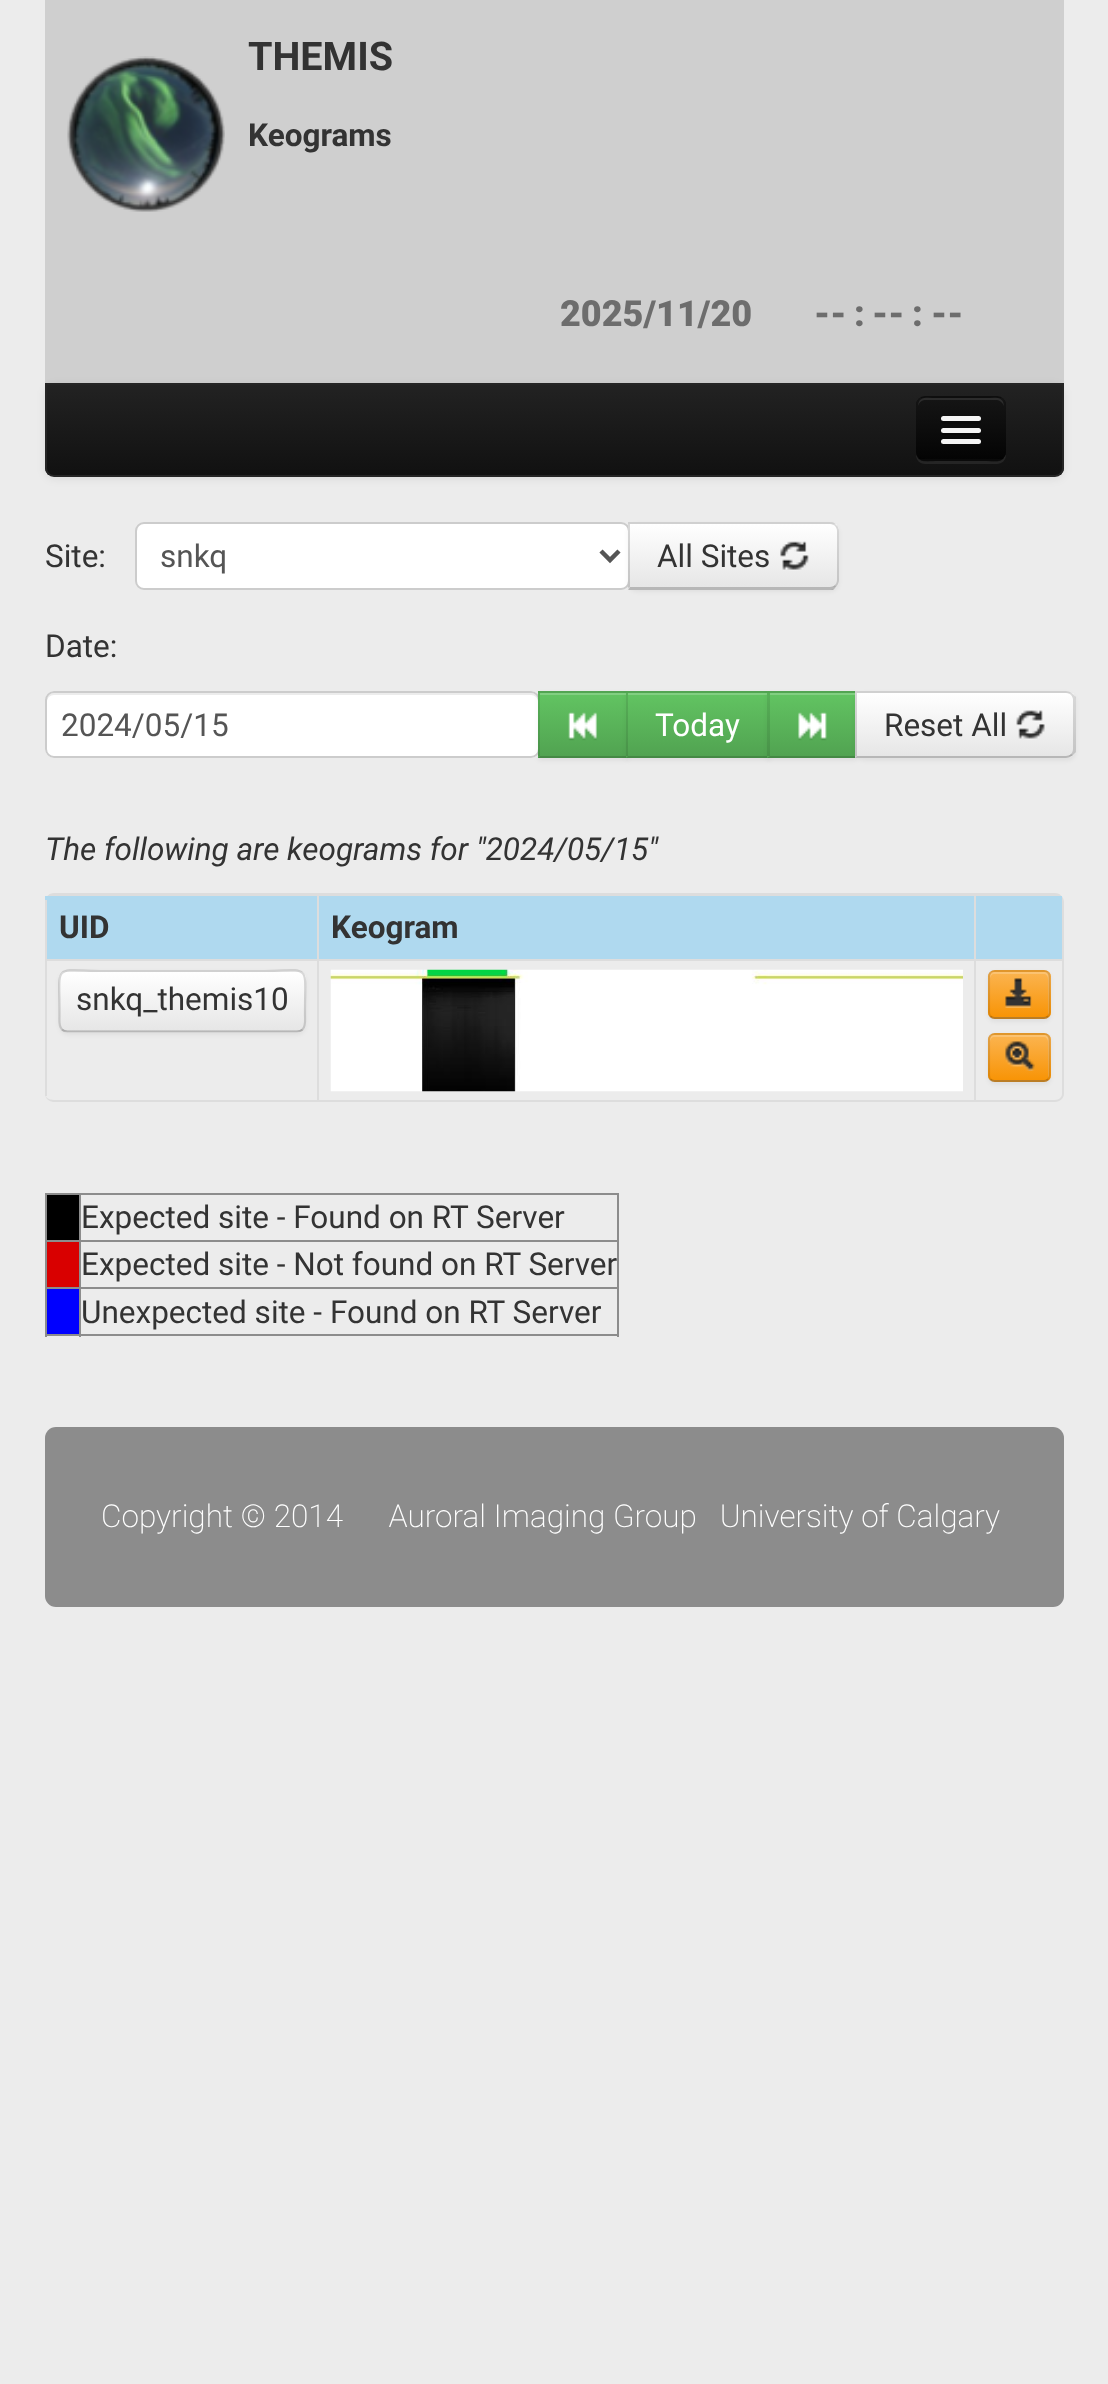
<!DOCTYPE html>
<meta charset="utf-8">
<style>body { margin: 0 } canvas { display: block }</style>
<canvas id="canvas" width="1108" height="2384"></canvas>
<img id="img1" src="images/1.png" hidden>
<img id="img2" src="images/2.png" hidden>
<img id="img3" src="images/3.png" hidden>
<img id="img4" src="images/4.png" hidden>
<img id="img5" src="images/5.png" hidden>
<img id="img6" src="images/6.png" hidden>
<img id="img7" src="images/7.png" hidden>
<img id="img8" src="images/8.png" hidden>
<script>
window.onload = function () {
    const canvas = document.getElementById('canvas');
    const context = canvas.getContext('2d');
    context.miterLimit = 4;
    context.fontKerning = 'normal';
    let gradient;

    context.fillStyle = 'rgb(236, 236, 236)';
    context.fillRect(0, 0, 1108, 2384);
    context.fillStyle = 'rgb(207, 207, 207)';
    context.fillRect(45, 0, 1019, 383);
    context.drawImage(document.getElementById('img1'), 67, 56, 158, 156);
    context.fillStyle = 'rgba(0, 0, 0, 0.07)';
    context.filter = 'blur(4.5px)';
    context.beginPath();
    context.roundRect(45, 385, 1019, 94, 9);
    context.fill();
    context.filter = 'none';
    context.save();
    context.beginPath();
    context.roundRect(45, 383, 1019, 94, [0, 0, 9, 9]);
    context.clip();
    gradient = context.createLinearGradient(555, 385, 555, 475);
    gradient.addColorStop(0, 'rgb(34, 34, 34)');
    gradient.addColorStop(1, 'rgb(17, 17, 17)');
    context.fillStyle = gradient;
    context.fillRect(45, 385, 1019, 90);
    context.restore();
    context.beginPath();
    context.roundRect(46, 384, 1017, 92, [0, 0, 8, 8]);
    context.strokeStyle = 'rgb(37, 37, 37)';
    context.lineWidth = 2;
    context.stroke();
    context.fillStyle = 'rgb(37, 37, 37)';
    context.beginPath();
    context.moveTo(916, 454);
    context.lineTo(916, 455);
    context.bezierCurveTo(916, 460, 920, 464, 925, 464);
    context.lineTo(997, 464);
    context.bezierCurveTo(1002, 464, 1006, 460, 1006, 455);
    context.lineTo(1006, 405);
    context.lineTo(1006, 454);
    context.lineTo(1003, 459);
    context.bezierCurveTo(999, 463, 990, 461, 985, 461);
    context.lineTo(937, 461);
    context.bezierCurveTo(930, 461, 918, 464, 916, 454);
    context.closePath();
    context.fill();
    context.fillStyle = 'rgb(14, 14, 14)';
    context.beginPath();
    context.roundRect(916, 396, 90, 65, 9);
    context.fill();
    context.save();
    context.beginPath();
    context.roundRect(916, 396, 90, 65, 9);
    context.clip();
    gradient = context.createLinearGradient(961, 398, 961, 459);
    gradient.addColorStop(0, 'rgb(21, 21, 21)');
    gradient.addColorStop(1, 'rgb(4, 4, 4)');
    context.fillStyle = gradient;
    context.fillRect(916, 398, 90, 61);
    context.restore();
    context.fillStyle = 'rgb(44, 44, 44)';
    context.beginPath();
    context.moveTo(925, 400);
    context.lineTo(997, 400);
    context.bezierCurveTo(1000, 400, 1004, 404, 1004, 407);
    context.bezierCurveTo(1004, 395, 994, 398, 985, 398);
    context.lineTo(937, 398);
    context.bezierCurveTo(928, 398, 918, 395, 918, 407);
    context.bezierCurveTo(918, 404, 921, 400, 925, 400);
    context.closePath();
    context.fill();
    context.beginPath();
    context.moveTo(1002.5, 458);
    context.bezierCurveTo(1001, 459.5, 999, 460, 997, 460);
    context.lineTo(925, 460);
    context.bezierCurveTo(922.5, 460, 920.5, 459.5, 919, 458);
    context.strokeStyle = 'rgba(0, 0, 0, 0.25)';
    context.lineWidth = 2.2;
    context.stroke();
    context.fillStyle = 'rgb(11, 11, 11)';
    context.beginPath();
    context.moveTo(941, 420);
    context.bezierCurveTo(939, 425, 949, 424, 949, 424);
    context.lineTo(973, 424);
    context.bezierCurveTo(973, 424, 984, 425, 980, 420);
    context.lineTo(979, 421);
    context.bezierCurveTo(976, 421, 943, 421, 941, 420);
    context.closePath();
    context.fill();
    context.fillStyle = 'rgb(245, 245, 245)';
    context.beginPath();
    context.roundRect(941, 416, 40, 5, 2.5);
    context.fill();
    context.fillStyle = 'rgb(8, 8, 8)';
    context.beginPath();
    context.moveTo(941, 431);
    context.bezierCurveTo(939, 436, 948, 435, 949, 435);
    context.lineTo(973, 435);
    context.bezierCurveTo(973, 435, 984, 436, 981, 431);
    context.lineTo(979, 432);
    context.bezierCurveTo(975, 432, 943, 433, 941, 431);
    context.closePath();
    context.fill();
    context.fillStyle = 'rgb(245, 245, 245)';
    context.beginPath();
    context.roundRect(941, 428, 40, 5, 2.5);
    context.fill();
    context.beginPath();
    context.roundRect(941, 439, 40, 5, 2.5);
    context.fill();
    context.fillStyle = 'rgb(255, 255, 255)';
    context.beginPath();
    context.roundRect(136, 523, 493, 66, 8);
    context.fill();
    context.strokeStyle = 'rgb(204, 204, 204)';
    context.lineWidth = 2;
    context.stroke();
    context.beginPath();
    context.moveTo(601, 551);
    context.lineTo(610, 560);
    context.lineTo(619, 551);
    context.strokeStyle = 'rgb(85, 85, 85)';
    context.lineWidth = 4.5;
    context.stroke();
    context.fillStyle = 'rgba(0, 0, 0, 0.05)';
    context.filter = 'blur(2px)';
    context.beginPath();
    context.roundRect(628, 524, 211, 68, 9);
    context.fill();
    context.filter = 'none';
    context.fillStyle = 'rgb(245, 245, 245)';
    context.beginPath();
    context.roundRect(628, 522, 211, 68, [0, 9, 9, 0]);
    context.fill();
    context.save();
    context.beginPath();
    context.roundRect(628, 522, 211, 68, [0, 9, 9, 0]);
    context.clip();
    gradient = context.createLinearGradient(734, 524, 734, 587);
    gradient.addColorStop(0, 'rgb(255, 255, 255)');
    gradient.addColorStop(1, 'rgb(230, 230, 230)');
    context.fillStyle = gradient;
    context.fillRect(628, 524, 211, 63);
    context.restore();
    context.fillStyle = 'rgba(0, 0, 0, 0.15)';
    context.beginPath();
    context.moveTo(628, 522);
    context.lineTo(630, 524);
    context.lineTo(830, 524);
    context.bezierCurveTo(832, 524, 834, 525, 835, 526);
    context.lineTo(836, 525);
    context.bezierCurveTo(835, 523, 833, 522, 830, 522);
    context.closePath();
    context.fill();
    context.beginPath();
    context.moveTo(836, 525);
    context.bezierCurveTo(838, 526, 839, 529, 839, 531);
    context.lineTo(839, 580);
    context.bezierCurveTo(839, 582, 838, 585, 836, 587);
    context.lineTo(835, 585);
    context.bezierCurveTo(836, 584, 837, 582, 837, 580);
    context.lineTo(837, 531);
    context.bezierCurveTo(837, 529, 836, 527, 835, 526);
    context.closePath();
    context.fill();
    context.fillStyle = 'rgba(0, 0, 0, 0.25)';
    context.beginPath();
    context.moveTo(628, 590);
    context.lineTo(630, 587);
    context.lineTo(830, 587);
    context.bezierCurveTo(832, 587, 834, 586, 835, 585);
    context.lineTo(836, 587);
    context.lineTo(833, 590);
    context.closePath();
    context.fill();
    context.fillStyle = 'rgba(0, 0, 0, 0.15)';
    context.beginPath();
    context.moveTo(628, 522);
    context.lineTo(628, 589);
    context.lineTo(630, 587);
    context.lineTo(630, 524);
    context.closePath();
    context.fill();
    context.drawImage(document.getElementById('img2'), 780, 541, 29, 30);
    context.fillStyle = 'rgb(255, 255, 255)';
    context.beginPath();
    context.roundRect(45, 691, 495, 67, 9);
    context.fill();
    context.fillStyle = 'rgb(236, 236, 236)';
    context.beginPath();
    context.moveTo(54, 695);
    context.lineTo(531, 695);
    context.bezierCurveTo(535, 695, 538, 698, 538, 702);
    context.lineTo(538, 700);
    context.bezierCurveTo(538, 696, 535, 693, 531, 693);
    context.lineTo(54, 693);
    context.bezierCurveTo(50, 693, 47, 696, 47, 700);
    context.lineTo(47, 702);
    context.bezierCurveTo(47, 698, 50, 695, 54, 695);
    context.closePath();
    context.fill();
    context.beginPath();
    context.roundRect(46, 692, 493, 65, 8);
    context.strokeStyle = 'rgb(204, 204, 204)';
    context.lineWidth = 2;
    context.stroke();
    context.fillStyle = 'rgba(0, 0, 0, 0.05)';
    context.filter = 'blur(2px)';
    context.beginPath();
    context.rect(538, 693, 90, 68);
    context.fill();
    context.filter = 'none';
    context.fillStyle = 'rgb(91, 183, 91)';
    context.fillRect(538, 691, 88, 67);
    gradient = context.createLinearGradient(583, 693, 583, 756);
    gradient.addColorStop(0, 'rgb(98, 196, 98)');
    gradient.addColorStop(1, 'rgb(81, 163, 81)');
    context.fillStyle = gradient;
    context.fillRect(538, 693, 88, 63);
    context.fillStyle = 'rgb(129, 207, 129)';
    context.fillRect(540, 693, 86, 2);
    context.fillStyle = 'rgb(82, 165, 82)';
    context.beginPath();
    context.moveTo(538, 691);
    context.lineTo(628, 691);
    context.lineTo(626, 693);
    context.lineTo(540, 693);
    context.closePath();
    context.fill();
    context.fillStyle = 'rgba(0, 0, 0, 0.25)';
    context.beginPath();
    context.moveTo(628, 758);
    context.lineTo(538, 758);
    context.lineTo(540, 756);
    context.lineTo(626, 756);
    context.closePath();
    context.fill();
    context.fillStyle = 'rgba(0, 0, 0, 0.1)';
    context.beginPath();
    context.moveTo(538, 758);
    context.lineTo(538, 691);
    context.lineTo(540, 693);
    context.lineTo(540, 756);
    context.closePath();
    context.fill();
    context.drawImage(document.getElementById('img3'), 568, 712, 29, 29);
    context.fillStyle = 'rgba(0, 0, 0, 0.05)';
    context.filter = 'blur(2px)';
    context.beginPath();
    context.rect(626, 693, 144, 68);
    context.fill();
    context.filter = 'none';
    context.fillStyle = 'rgb(91, 183, 91)';
    context.fillRect(626, 691, 141, 67);
    gradient = context.createLinearGradient(698, 693, 698, 756);
    gradient.addColorStop(0, 'rgb(98, 196, 98)');
    gradient.addColorStop(1, 'rgb(81, 163, 81)');
    context.fillStyle = gradient;
    context.fillRect(626, 693, 141, 63);
    context.fillStyle = 'rgb(129, 207, 129)';
    context.fillRect(628, 693, 139, 2);
    context.fillStyle = 'rgb(82, 165, 82)';
    context.beginPath();
    context.moveTo(626, 691);
    context.lineTo(770, 691);
    context.lineTo(767, 693);
    context.lineTo(628, 693);
    context.closePath();
    context.fill();
    context.fillStyle = 'rgba(0, 0, 0, 0.25)';
    context.beginPath();
    context.moveTo(770, 758);
    context.lineTo(626, 758);
    context.lineTo(628, 756);
    context.lineTo(767, 756);
    context.closePath();
    context.fill();
    context.fillStyle = 'rgba(0, 0, 0, 0.1)';
    context.beginPath();
    context.moveTo(626, 758);
    context.lineTo(626, 691);
    context.lineTo(628, 693);
    context.lineTo(628, 756);
    context.closePath();
    context.fill();
    context.fillStyle = 'rgba(0, 0, 0, 0.05)';
    context.filter = 'blur(2px)';
    context.beginPath();
    context.rect(767, 693, 90, 68);
    context.fill();
    context.filter = 'none';
    context.fillStyle = 'rgb(91, 183, 91)';
    context.fillRect(767, 691, 88, 67);
    gradient = context.createLinearGradient(812, 693, 812, 756);
    gradient.addColorStop(0, 'rgb(98, 196, 98)');
    gradient.addColorStop(1, 'rgb(81, 163, 81)');
    context.fillStyle = gradient;
    context.fillRect(767, 693, 88, 63);
    context.fillStyle = 'rgb(129, 207, 129)';
    context.fillRect(770, 693, 85, 2);
    context.fillStyle = 'rgb(82, 165, 82)';
    context.beginPath();
    context.moveTo(767, 691);
    context.lineTo(857, 691);
    context.lineTo(855, 693);
    context.lineTo(770, 693);
    context.closePath();
    context.fill();
    context.fillStyle = 'rgba(0, 0, 0, 0.25)';
    context.beginPath();
    context.moveTo(857, 758);
    context.lineTo(767, 758);
    context.lineTo(770, 756);
    context.lineTo(855, 756);
    context.closePath();
    context.fill();
    context.fillStyle = 'rgba(0, 0, 0, 0.1)';
    context.beginPath();
    context.moveTo(767, 758);
    context.lineTo(767, 691);
    context.lineTo(770, 693);
    context.lineTo(770, 756);
    context.closePath();
    context.fill();
    context.drawImage(document.getElementById('img4'), 798, 712, 29, 29);
    context.fillStyle = 'rgba(0, 0, 0, 0.05)';
    context.filter = 'blur(2px)';
    context.beginPath();
    context.roundRect(855, 693, 221, 68, 9);
    context.fill();
    context.filter = 'none';
    context.fillStyle = 'rgb(245, 245, 245)';
    context.beginPath();
    context.roundRect(855, 691, 221, 67, [0, 9, 9, 0]);
    context.fill();
    context.save();
    context.beginPath();
    context.roundRect(855, 691, 221, 67, [0, 9, 9, 0]);
    context.clip();
    gradient = context.createLinearGradient(965, 693, 965, 756);
    gradient.addColorStop(0, 'rgb(255, 255, 255)');
    gradient.addColorStop(1, 'rgb(230, 230, 230)');
    context.fillStyle = gradient;
    context.fillRect(855, 693, 221, 63);
    context.restore();
    context.fillStyle = 'rgba(0, 0, 0, 0.15)';
    context.beginPath();
    context.moveTo(1073, 694);
    context.bezierCurveTo(1071, 692, 1068, 691, 1066, 691);
    context.lineTo(855, 691);
    context.lineTo(857, 693);
    context.lineTo(1066, 693);
    context.bezierCurveTo(1068, 693, 1070, 694, 1071, 695);
    context.closePath();
    context.fill();
    context.beginPath();
    context.moveTo(1073, 694);
    context.lineTo(1076, 697);
    context.lineTo(1076, 752);
    context.lineTo(1073, 755);
    context.lineTo(1071, 754);
    context.bezierCurveTo(1072, 753, 1073, 751, 1073, 749);
    context.lineTo(1073, 700);
    context.bezierCurveTo(1073, 698, 1072, 696, 1071, 695);
    context.closePath();
    context.fill();
    context.fillStyle = 'rgba(0, 0, 0, 0.25)';
    context.beginPath();
    context.moveTo(1073, 755);
    context.bezierCurveTo(1071, 757, 1068, 758, 1066, 758);
    context.lineTo(855, 758);
    context.lineTo(857, 756);
    context.lineTo(1066, 756);
    context.bezierCurveTo(1068, 756, 1070, 755, 1071, 754);
    context.closePath();
    context.fill();
    context.fillStyle = 'rgba(0, 0, 0, 0.15)';
    context.beginPath();
    context.moveTo(857, 693);
    context.lineTo(857, 756);
    context.lineTo(855, 758);
    context.lineTo(855, 691);
    context.closePath();
    context.fill();
    context.drawImage(document.getElementById('img5'), 1016, 710, 29, 30);
    context.fillStyle = 'rgb(221, 221, 221)';
    context.beginPath();
    context.moveTo(54, 893);
    context.lineTo(1055, 893);
    context.bezierCurveTo(1060, 893, 1064, 897, 1064, 902);
    context.lineTo(1064, 1094);
    context.bezierCurveTo(1064, 1098, 1060, 1102, 1055, 1102);
    context.lineTo(54, 1102);
    context.bezierCurveTo(49, 1102, 45, 1098, 45, 1094);
    context.lineTo(45, 902);
    context.bezierCurveTo(45, 897, 49, 893, 54, 893);
    context.closePath();
    context.moveTo(54, 896);
    context.lineTo(1055, 896);
    context.bezierCurveTo(1059, 896, 1062, 899, 1062, 902);
    context.lineTo(1062, 1094);
    context.bezierCurveTo(1062, 1097, 1059, 1100, 1055, 1100);
    context.lineTo(54, 1100);
    context.bezierCurveTo(49, 1100, 45, 1097, 45, 1094);
    context.lineTo(45, 902);
    context.bezierCurveTo(45, 899, 49, 896, 54, 896);
    context.closePath();
    context.fill('evenodd');
    context.fillStyle = 'rgb(175, 217, 239)';
    context.fillRect(45, 896, 1017, 63);
    context.fillStyle = 'rgb(221, 221, 221)';
    context.fillRect(45, 900, 2, 59);
    context.fillRect(317, 896, 2, 63);
    context.fillRect(974, 896, 2, 63);
    context.fillRect(45, 959, 1017, 2);
    context.fillRect(45, 959, 2, 137);
    context.fillStyle = 'rgba(0, 0, 0, 0.05)';
    context.filter = 'blur(2px)';
    context.beginPath();
    context.roundRect(59, 972, 247, 63, 9);
    context.fill();
    context.filter = 'none';
    context.fillStyle = 'rgb(245, 245, 245)';
    context.beginPath();
    context.roundRect(59, 970, 247, 63, 9);
    context.fill();
    context.save();
    context.beginPath();
    context.roundRect(59, 970, 247, 63, 9);
    context.clip();
    gradient = context.createLinearGradient(182, 972, 182, 1031);
    gradient.addColorStop(0, 'rgb(255, 255, 255)');
    gradient.addColorStop(1, 'rgb(230, 230, 230)');
    context.fillStyle = gradient;
    context.fillRect(59, 972, 247, 59);
    context.restore();
    context.beginPath();
    context.moveTo(302.5, 1029.5);
    context.bezierCurveTo(301, 1031, 299, 1031.5, 297, 1031.5);
    context.lineTo(67.5, 1031.5);
    context.bezierCurveTo(65.5, 1031.5, 63.5, 1031, 62, 1029.5);
    context.strokeStyle = 'rgba(0, 0, 0, 0.25)';
    context.lineWidth = 2.2;
    context.stroke();
    context.beginPath();
    context.moveTo(62, 1029.5);
    context.bezierCurveTo(58.5, 1026, 59.5, 1020.5, 59.5, 1016);
    context.lineTo(59.5, 1009);
    context.bezierCurveTo(59.5, 962, 53, 971, 106, 971);
    context.lineTo(259, 971);
    context.bezierCurveTo(311.5, 971, 305, 962, 305, 1009);
    context.lineTo(305, 1016);
    context.bezierCurveTo(305, 1020.5, 306, 1026, 302.5, 1029.5);
    context.strokeStyle = 'rgba(0, 0, 0, 0.15)';
    context.stroke();
    context.fillStyle = 'rgb(221, 221, 221)';
    context.fillRect(317, 959, 2, 141);
    context.drawImage(document.getElementById('img6'), 330, 969, 633, 123);
    context.fillRect(974, 959, 2, 141);
    context.fillStyle = 'rgba(0, 0, 0, 0.05)';
    context.filter = 'blur(2px)';
    context.beginPath();
    context.roundRect(988, 972, 63, 50, 7);
    context.fill();
    context.filter = 'none';
    context.fillStyle = 'rgb(250, 167, 50)';
    context.beginPath();
    context.roundRect(988, 970, 63, 49, 7);
    context.fill();
    context.save();
    context.beginPath();
    context.roundRect(988, 970, 63, 49, 7);
    context.clip();
    gradient = context.createLinearGradient(1019, 972, 1019, 1017);
    gradient.addColorStop(0, 'rgb(251, 180, 80)');
    gradient.addColorStop(1, 'rgb(248, 148, 6)');
    context.fillStyle = gradient;
    context.fillRect(988, 972, 63, 45);
    context.restore();
    context.fillStyle = 'rgba(255, 255, 255, 0.2)';
    context.beginPath();
    context.moveTo(994, 974);
    context.lineTo(1044, 974);
    context.bezierCurveTo(1046, 974, 1048, 976, 1048, 979);
    context.lineTo(1048, 1015);
    context.bezierCurveTo(1049, 1014, 1049, 1013, 1049, 1012);
    context.lineTo(1049, 977);
    context.bezierCurveTo(1049, 974, 1047, 972, 1044, 972);
    context.lineTo(995, 972);
    context.bezierCurveTo(992, 972, 990, 974, 990, 977);
    context.lineTo(990, 979);
    context.bezierCurveTo(990, 976, 992, 974, 994, 974);
    context.closePath();
    context.fill();
    context.beginPath();
    context.moveTo(1048, 1016.5);
    context.bezierCurveTo(1047, 1017.5, 1045.5, 1018, 1044, 1018);
    context.lineTo(994.5, 1018);
    context.bezierCurveTo(993, 1018, 991.5, 1017.5, 990.5, 1016.5);
    context.strokeStyle = 'rgba(0, 0, 0, 0.25)';
    context.stroke();
    context.beginPath();
    context.moveTo(990.5, 1016.5);
    context.bezierCurveTo(989.5, 1015.5, 989, 1014, 989, 1012.5);
    context.lineTo(989, 976.5);
    context.bezierCurveTo(989, 975, 989.5, 973.5, 990.5, 972.5);
    context.bezierCurveTo(991.5, 971.5, 993, 971, 994.5, 971);
    context.lineTo(1044, 971);
    context.bezierCurveTo(1045.5, 971, 1047, 971.5, 1048, 972.5);
    context.bezierCurveTo(1049, 973.5, 1049.5, 975, 1049.5, 976.5);
    context.lineTo(1049.5, 1012.5);
    context.bezierCurveTo(1049.5, 1014, 1049, 1015.5, 1048, 1016.5);
    context.strokeStyle = 'rgba(0, 0, 0, 0.1)';
    context.stroke();
    context.drawImage(document.getElementById('img7'), 1005, 978, 27, 30);
    context.fillStyle = 'rgba(0, 0, 0, 0.05)';
    context.filter = 'blur(2px)';
    context.beginPath();
    context.roundRect(988, 1035, 63, 50, 7);
    context.fill();
    context.filter = 'none';
    context.fillStyle = 'rgb(250, 167, 50)';
    context.beginPath();
    context.roundRect(988, 1033, 63, 49, 7);
    context.fill();
    context.save();
    context.beginPath();
    context.roundRect(988, 1033, 63, 49, 7);
    context.clip();
    gradient = context.createLinearGradient(1019, 1035, 1019, 1080);
    gradient.addColorStop(0, 'rgb(251, 180, 80)');
    gradient.addColorStop(1, 'rgb(248, 148, 6)');
    context.fillStyle = gradient;
    context.fillRect(988, 1035, 63, 45);
    context.restore();
    context.fillStyle = 'rgba(255, 255, 255, 0.2)';
    context.beginPath();
    context.moveTo(994, 1037);
    context.lineTo(1044, 1037);
    context.bezierCurveTo(1046, 1037, 1048, 1039, 1048, 1042);
    context.lineTo(1048, 1078);
    context.bezierCurveTo(1049, 1077, 1049, 1076, 1049, 1075);
    context.lineTo(1049, 1040);
    context.bezierCurveTo(1049, 1037, 1047, 1035, 1044, 1035);
    context.lineTo(995, 1035);
    context.bezierCurveTo(992, 1035, 990, 1037, 990, 1040);
    context.lineTo(990, 1042);
    context.bezierCurveTo(990, 1039, 992, 1037, 994, 1037);
    context.closePath();
    context.fill();
    context.beginPath();
    context.moveTo(1048, 1079.5);
    context.bezierCurveTo(1047, 1080.5, 1045.5, 1081, 1044, 1081);
    context.lineTo(994.5, 1081);
    context.bezierCurveTo(993, 1081, 991.5, 1080.5, 990.5, 1079.5);
    context.strokeStyle = 'rgba(0, 0, 0, 0.25)';
    context.stroke();
    context.beginPath();
    context.moveTo(990.5, 1079.5);
    context.bezierCurveTo(989.5, 1078.5, 989, 1077, 989, 1075.5);
    context.lineTo(989, 1039.5);
    context.bezierCurveTo(989, 1038, 989.5, 1036.5, 990.5, 1035.5);
    context.bezierCurveTo(991.5, 1034.5, 993, 1034, 994.5, 1034);
    context.lineTo(1044, 1034);
    context.bezierCurveTo(1045.5, 1034, 1047, 1034.5, 1048, 1035.5);
    context.bezierCurveTo(1049, 1036.5, 1049.5, 1038, 1049.5, 1039.5);
    context.lineTo(1049.5, 1075.5);
    context.bezierCurveTo(1049.5, 1077, 1049, 1078.5, 1048, 1079.5);
    context.strokeStyle = 'rgba(0, 0, 0, 0.1)';
    context.stroke();
    context.drawImage(document.getElementById('img8'), 1005, 1041, 30, 30);
    context.fillStyle = 'rgb(0, 0, 0)';
    context.fillRect(47, 1195, 32, 45);
    context.fillStyle = 'rgb(140, 140, 140)';
    context.fillRect(79, 1193, 540, 2);
    context.fillRect(79, 1240, 540, 2);
    context.fillRect(79, 1287, 540, 2);
    context.fillRect(617, 1287, 2, 50);
    context.fillRect(79, 1334, 540, 2);
    context.fillRect(79, 1287, 2, 50);
    context.fillRect(45, 1287, 36, 2);
    context.fillRect(79, 1240, 2, 49);
    context.fillRect(45, 1240, 36, 2);
    context.fillRect(79, 1193, 2, 49);
    context.fillRect(45, 1193, 36, 2);
    context.fillRect(45, 1334, 36, 2);
    context.fillRect(45, 1287, 2, 50);
    context.fillRect(45, 1240, 2, 49);
    context.fillRect(45, 1193, 2, 49);
    context.fillRect(617, 1240, 2, 49);
    context.fillRect(617, 1193, 2, 49);
    context.fillStyle = 'rgb(217, 0, 0)';
    context.fillRect(47, 1242, 32, 45);
    context.fillStyle = 'rgb(0, 0, 255)';
    context.fillRect(47, 1289, 32, 45);
    context.fillStyle = 'rgb(140, 140, 140)';
    context.beginPath();
    context.roundRect(45, 1427, 1019, 180, 11);
    context.fill();
    context.font = 'bold 39.5px Roboto';
    context.fillStyle = 'rgb(51, 51, 51)';
    context.fillText('THEMIS', 248, 70);
    context.font = 'bold 31.5px Roboto';
    context.fillText('Keograms', 248, 146);
    context.font = '900 36px Roboto';
    context.fillStyle = 'rgb(109, 109, 109)';
    context.fillText('2025/11/20', 560, 326);
    context.fillText('--', 814, 326);
    context.fillText(':', 854, 326);
    context.fillText('--', 872, 326);
    context.fillText(':', 912, 326);
    context.fillText('--', 931, 326);
    context.font = '31.5px Roboto';
    context.fillStyle = 'rgb(51, 51, 51)';
    context.fillText('Site:', 45, 567);
    context.fillStyle = 'rgb(85, 85, 85)';
    context.fillText('snkq', 160, 567);
    context.fillStyle = 'rgb(51, 51, 51)';
    context.fillText('All Sites', 657, 567);
    context.fillText('Date:', 45, 657);
    context.fillStyle = 'rgb(85, 85, 85)';
    context.fillText('2024/05/15', 61, 736);
    context.fillStyle = 'rgb(255, 255, 255)';
    context.fillText('Today', 655, 736);
    context.fillStyle = 'rgb(51, 51, 51)';
    context.fillText('Reset All', 884, 736);
    context.font = 'italic 31.5px Roboto';
    context.fillText('The following are keograms for "2024/05/15"', 45, 860);
    context.font = 'bold 31.5px Roboto';
    context.fillText('UID', 59, 938);
    context.fillText('Keogram', 331, 938);
    context.font = '31.5px Roboto';
    context.fillText('snkq_themis10', 76, 1010);
    context.fillText('Expected site - Found on RT Server', 81, 1228);
    context.fillText('Expected site - Not found on RT Server', 81, 1275);
    context.fillText('Unexpected site - Found on RT Server', 81, 1323);
    context.font = '200 31.5px Roboto';
    context.fillStyle = 'rgb(255, 255, 255)';
    context.fillText('Copyright © 2014      Auroral Imaging Group   University of Calgary', 101, 1527);
};
</script>
